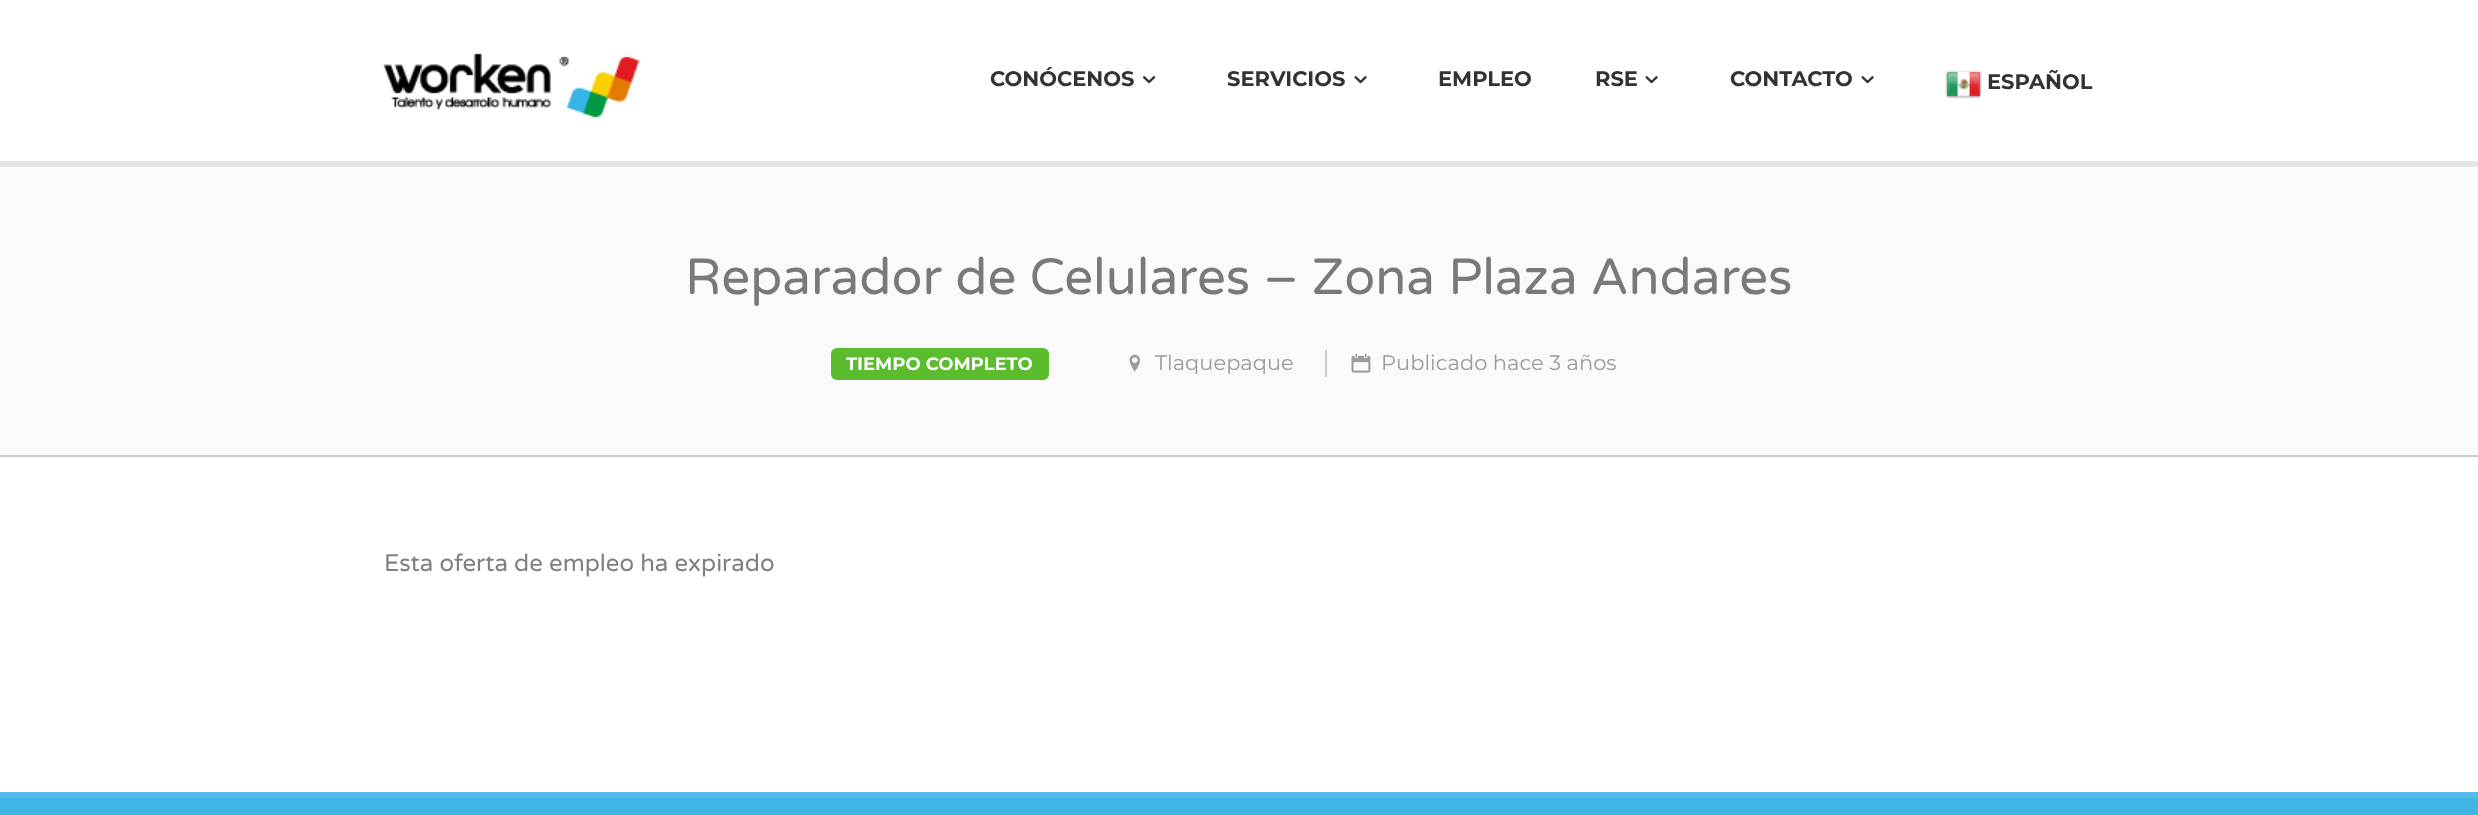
<!DOCTYPE html>
<meta charset="utf-8">
<style>body { margin: 0 } canvas { display: block }</style>
<canvas id="canvas" width="2478" height="815"></canvas>
<img id="img1" src="images/1.png" hidden>
<img id="img2" src="images/2.png" hidden>
<img id="img3" src="images/3.png" hidden>
<img id="img4" src="images/4.png" hidden>
<img id="img5" src="images/5.png" hidden>
<img id="img6" src="images/6.png" hidden>
<script>
window.onload = function () {
    const canvas = document.getElementById('canvas');
    const context = canvas.getContext('2d');
    context.miterLimit = 4;
    context.fontKerning = 'normal';

    context.fillStyle = 'rgb(255, 255, 255)';
    context.fillRect(0, 0, 2478, 815);
    context.fillStyle = 'rgb(230, 230, 230)';
    context.fillRect(0, 161, 2478, 6);
    context.drawImage(document.getElementById('img1'), 383, 53, 257, 65);
    context.drawImage(document.getElementById('img2'), 1143, 76, 13, 8);
    context.drawImage(document.getElementById('img3'), 1354, 76, 13, 8);
    context.drawImage(document.getElementById('img3'), 1645, 76, 13, 8);
    context.drawImage(document.getElementById('img3'), 1861, 76, 13, 8);
    context.drawImage(document.getElementById('img4'), 1945, 70, 37, 29);
    context.fillStyle = 'rgb(250, 250, 250)';
    context.fillRect(0, 167, 2478, 288);
    context.fillStyle = 'rgb(204, 204, 204)';
    context.fillRect(0, 455, 2478, 2);
    context.fillStyle = 'rgb(91, 188, 46)';
    context.beginPath();
    context.roundRect(831, 348, 218, 32, 6);
    context.fill();
    context.fillStyle = 'rgb(204, 204, 204)';
    context.fillRect(1325, 350, 2, 27);
    context.drawImage(document.getElementById('img5'), 1129, 354, 11, 18);
    context.drawImage(document.getElementById('img6'), 1351, 353, 20, 20);
    context.fillStyle = 'rgb(64, 180, 229)';
    context.fillRect(0, 798, 2478, 17);
    context.fillStyle = 'rgb(83, 188, 232)';
    context.fillRect(0, 792, 2478, 6);
    context.font = 'bold 21px Montserrat';
    context.fillStyle = 'rgb(51, 51, 51)';
    context.fillText('CONÓCENOS', 990, 86);
    context.fillText('SERVICIOS', 1227, 86);
    context.fillText('EMPLEO', 1438, 86);
    context.fillText('RSE', 1595, 86);
    context.fillText('CONTACTO', 1730, 86);
    context.fillText('ESPAÑOL', 1987, 89);
    context.font = '51px Varela Round';
    context.fillStyle = 'rgb(121, 121, 121)';
    context.fillText('Reparador de Celulares – Zona Plaza Andares', 685, 294);
    context.font = 'bold 18px Montserrat';
    context.fillStyle = 'rgb(255, 255, 255)';
    context.fillText('TIEMPO COMPLETO', 846, 370);
    context.font = '21px Montserrat';
    context.fillStyle = 'rgb(154, 155, 158)';
    context.fillText('Tlaquepaque', 1155, 370);
    context.fillText('Publicado hace 3 años', 1381, 370);
    context.font = '24px Varela Round';
    context.fillStyle = 'rgb(129, 128, 128)';
    context.fillText('Esta oferta de empleo ha expirado', 384, 571);
};
</script>
